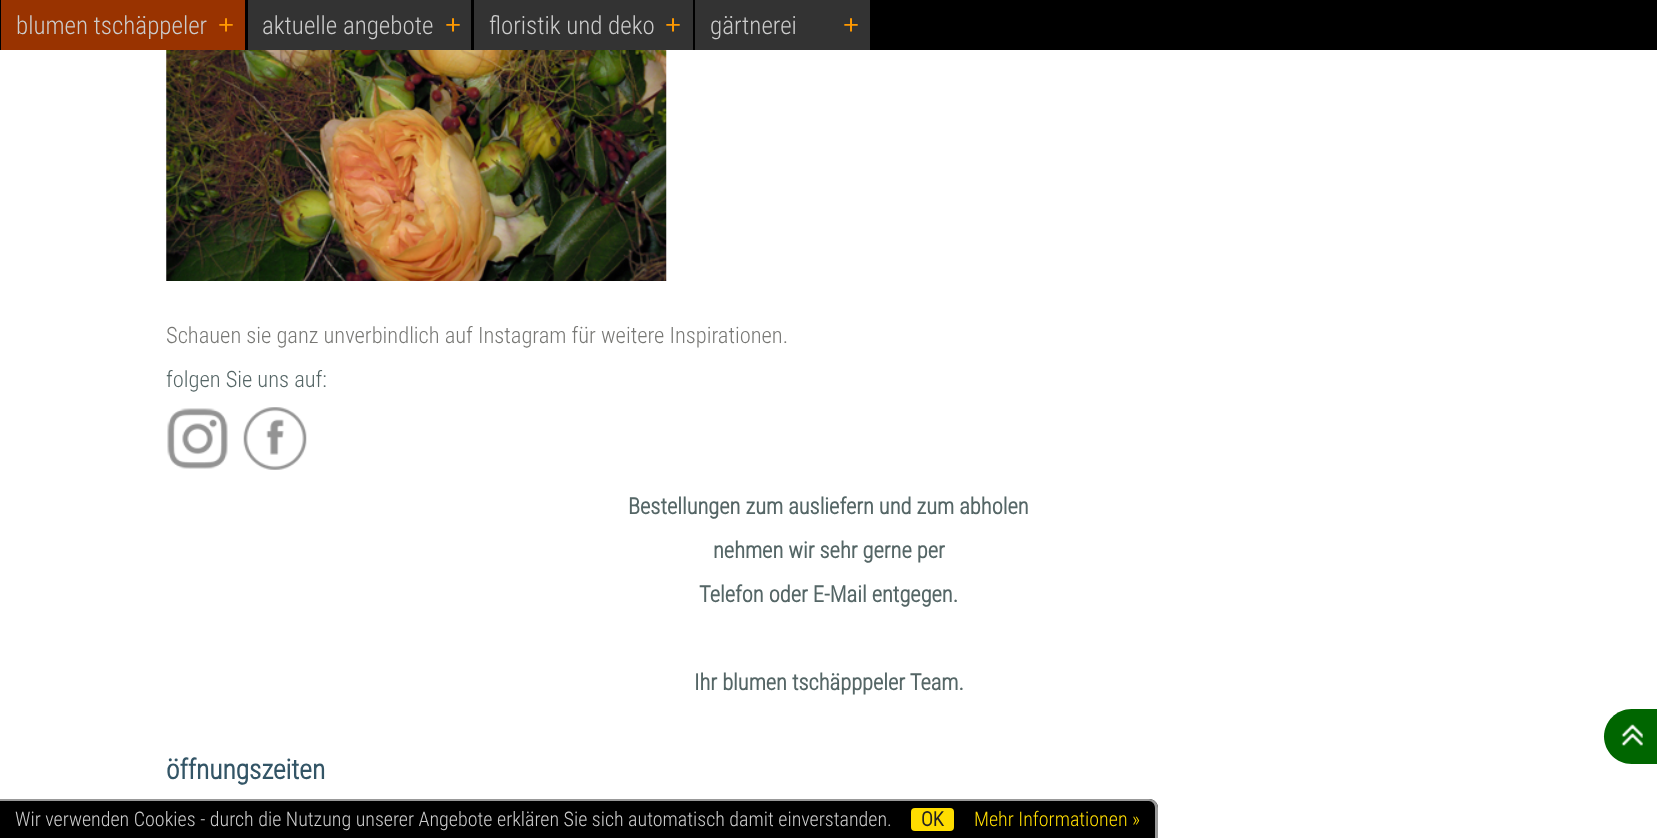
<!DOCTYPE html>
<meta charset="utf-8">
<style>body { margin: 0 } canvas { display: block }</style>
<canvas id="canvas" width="1657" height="838"></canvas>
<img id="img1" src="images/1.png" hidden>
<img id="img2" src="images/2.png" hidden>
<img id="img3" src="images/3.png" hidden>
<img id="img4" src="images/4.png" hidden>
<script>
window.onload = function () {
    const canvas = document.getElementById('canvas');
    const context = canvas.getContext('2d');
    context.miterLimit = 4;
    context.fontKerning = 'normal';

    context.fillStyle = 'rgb(255, 255, 255)';
    context.fillRect(0, 0, 1657, 838);
    context.fillStyle = 'rgb(0, 0, 0)';
    context.fillRect(0, 0, 1657, 50);
    context.fillStyle = 'rgb(153, 51, 0)';
    context.fillRect(1, 0, 244, 50);
    context.fillStyle = 'rgb(51, 51, 51)';
    context.fillRect(248, 0, 223, 50);
    context.fillRect(474, 0, 219, 50);
    context.fillRect(695, 0, 175, 50);
    context.drawImage(document.getElementById('img1'), 166, 50, 501, 231);
    context.drawImage(document.getElementById('img2'), 167, 408, 61, 61);
    context.drawImage(document.getElementById('img3'), 243, 407, 64, 63);
    context.fillStyle = 'rgb(0, 102, 0)';
    context.beginPath();
    context.moveTo(1631.5, 709);
    context.lineTo(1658, 709);
    context.lineTo(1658, 764);
    context.lineTo(1631.5, 764);
    context.bezierCurveTo(1616.5, 764, 1604, 751.5, 1604, 736.5);
    context.bezierCurveTo(1604, 721.5, 1616.5, 709, 1631.5, 709);
    context.closePath();
    context.fill();
    context.drawImage(document.getElementById('img4'), 1621, 724, 22, 22);
    context.fillStyle = 'rgb(0, 0, 0)';
    context.beginPath();
    context.moveTo(0, 799);
    context.lineTo(1149, 799);
    context.bezierCurveTo(1154, 799, 1158, 803, 1158, 808);
    context.lineTo(1158, 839);
    context.lineTo(0, 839);
    context.closePath();
    context.fill();
    context.fillStyle = 'rgb(153, 153, 153)';
    context.beginPath();
    context.moveTo(0, 799);
    context.lineTo(1149, 799);
    context.bezierCurveTo(1154, 799, 1158, 803, 1158, 808);
    context.lineTo(1158, 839);
    context.lineTo(0, 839);
    context.closePath();
    context.moveTo(0, 801);
    context.lineTo(1149, 801);
    context.bezierCurveTo(1152, 801, 1155, 804, 1155, 808);
    context.lineTo(1155, 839);
    context.lineTo(0, 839);
    context.closePath();
    context.fill('evenodd');
    context.fillStyle = 'rgb(255, 221, 0)';
    context.beginPath();
    context.roundRect(911, 808, 43, 23, 4);
    context.fill();
    context.font = '300 25px Roboto Condensed';
    context.fillStyle = 'rgb(204, 204, 204)';
    context.fillText('blumen tschäppeler', 16, 34);
    context.font = '27.5px Liberation Sans';
    context.fillStyle = 'rgb(255, 153, 0)';
    context.fillText('+', 218, 34);
    context.font = '300 25px Roboto Condensed';
    context.fillStyle = 'rgb(204, 204, 204)';
    context.fillText('aktuelle angebote', 262, 34);
    context.font = '27.5px Liberation Sans';
    context.fillStyle = 'rgb(255, 153, 0)';
    context.fillText('+', 445, 34);
    context.font = '300 25px Roboto Condensed';
    context.fillStyle = 'rgb(204, 204, 204)';
    context.fillText('floristik und deko', 489, 34);
    context.font = '27.5px Liberation Sans';
    context.fillStyle = 'rgb(255, 153, 0)';
    context.fillText('+', 665, 34);
    context.font = '300 25px Roboto Condensed';
    context.fillStyle = 'rgb(204, 204, 204)';
    context.fillText('gärtnerei', 710, 34);
    context.font = '27.5px Liberation Sans';
    context.fillStyle = 'rgb(255, 153, 0)';
    context.fillText('+', 843, 34);
    context.font = '300 22.5px Roboto Condensed';
    context.fillStyle = 'rgb(119, 119, 116)';
    context.fillText('Schauen sie ganz unverbindlich auf Instagram für weitere Inspirationen.', 166, 343);
    context.fillStyle = 'rgb(85, 102, 102)';
    context.fillText('folgen Sie uns auf:', 166, 387);
    context.font = 'bold 22.5px Roboto Condensed';
    context.fillText('Bestellungen zum ausliefern und zum abholen', 628, 514);
    context.fillText('nehmen wir sehr gerne per', 713, 558);
    context.fillText('Telefon oder E-Mail entgegen.', 699, 602);
    context.fillText('Ihr blumen tschäpppeler Team.', 694, 690);
    context.font = 'bold 27.5px Roboto Condensed';
    context.fillStyle = 'rgb(51, 85, 102)';
    context.fillText('öffnungszeiten', 166, 779);
    context.font = '300 20px Roboto Condensed';
    context.fillStyle = 'rgb(204, 204, 204)';
    context.fillText('Wir verwenden Cookies - durch die Nutzung unserer Angebote erklären Sie sich automatisch damit einverstanden.', 15, 826);
    context.font = 'bold 20px Roboto Condensed';
    context.fillStyle = 'rgb(34, 34, 34)';
    context.fillText('OK', 921, 826);
    context.font = '300 20px Roboto Condensed';
    context.fillStyle = 'rgb(255, 221, 0)';
    context.fillText('Mehr Informationen »', 974, 826);
};
</script>
